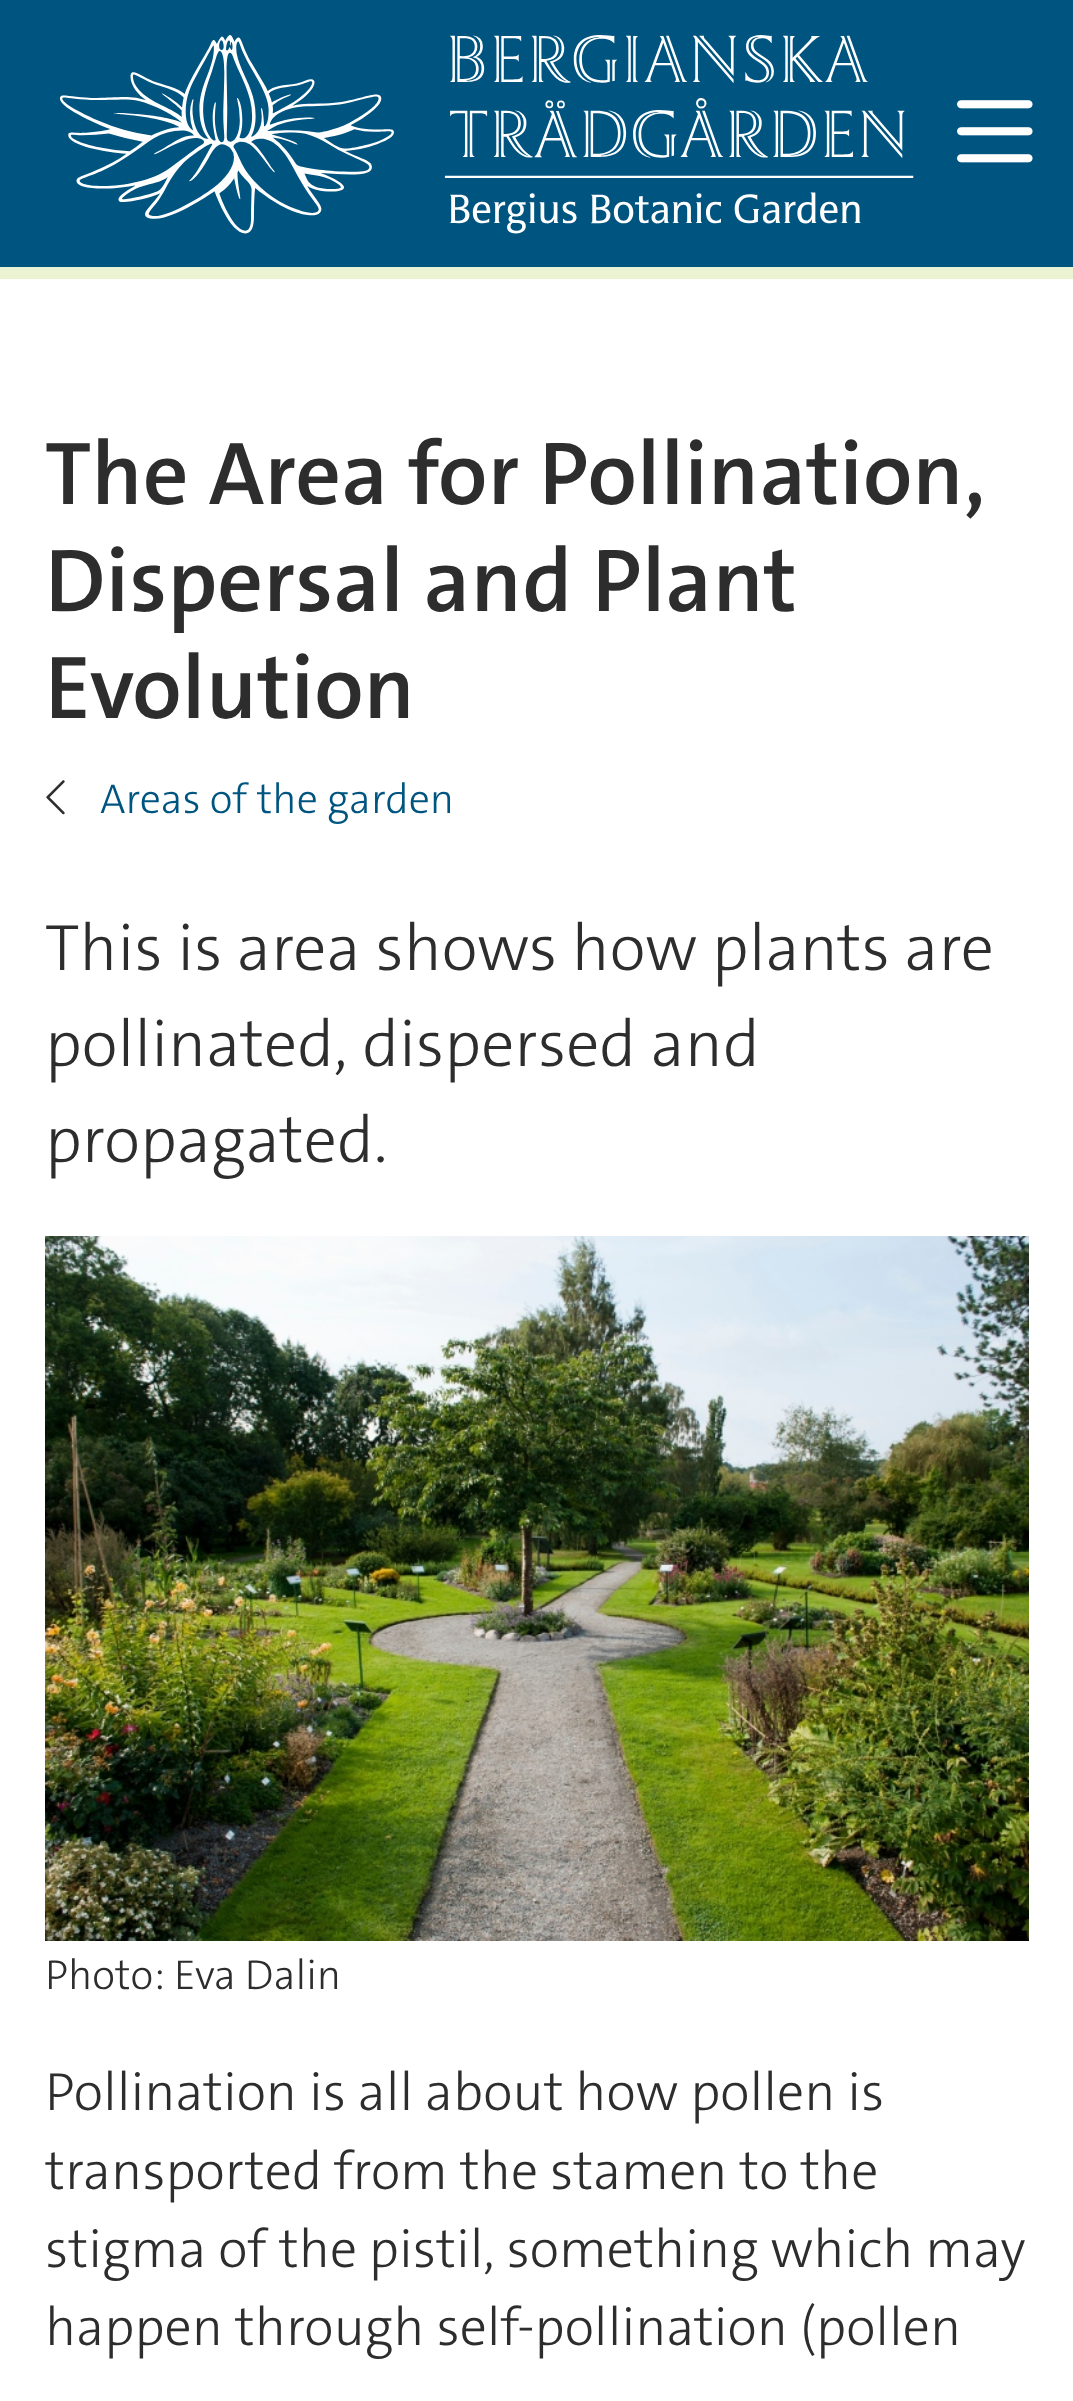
<!DOCTYPE html>
<meta charset="utf-8">
<style>body { margin: 0 } canvas { display: block }</style>
<canvas id="canvas" width="1073" height="2401"></canvas>
<img id="img1" src="images/1.png" hidden>
<img id="img2" src="images/2.png" hidden>
<img id="img3" src="images/3.png" hidden>
<img id="img4" src="images/4.png" hidden>
<script>
window.onload = function () {
    const canvas = document.getElementById('canvas');
    const context = canvas.getContext('2d');
    context.miterLimit = 4;
    context.fontKerning = 'normal';

    context.fillStyle = 'rgb(255, 255, 255)';
    context.fillRect(0, 0, 1073, 2401);
    context.fillStyle = 'rgb(0, 84, 128)';
    context.fillRect(0, 0, 1073, 267);
    context.fillStyle = 'rgb(234, 243, 210)';
    context.fillRect(0, 267, 1073, 12);
    context.drawImage(document.getElementById('img1'), 59, 35, 855, 199);
    context.drawImage(document.getElementById('img2'), 957, 100, 76, 63);
    context.drawImage(document.getElementById('img3'), 46, 780, 19, 35);
    context.drawImage(document.getElementById('img4'), 45, 1236, 984, 705);
    context.font = '600 90px "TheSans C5"';
    context.fillStyle = 'rgb(45, 45, 45)';
    context.fillText('The Area for Pollination,', 45, 504);
    context.fillText('Dispersal and Plant', 45, 611);
    context.fillText('Evolution', 45, 718);
    context.font = '300 42px "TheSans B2"';
    context.fillStyle = 'rgb(0, 84, 128)';
    context.fillText('Areas of the garden', 100, 813);
    context.font = '300 66px "TheSans B2"';
    context.fillStyle = 'rgb(45, 45, 45)';
    context.fillText('This is area shows how plants are', 45, 970);
    context.fillText('pollinated, dispersed and', 45, 1066);
    context.fillText('propagated.', 45, 1162);
    context.font = '300 42px "TheSans B2"';
    context.fillText('Photo: Eva Dalin', 45, 1989);
    context.font = '300 54px "TheSans B2"';
    context.fillText('Pollination is all about how pollen is', 45, 2110);
    context.fillText('transported from the stamen to the', 45, 2189);
    context.fillText('stigma of the pistil, something which may', 45, 2267);
    context.fillText('happen through self-pollination (pollen', 45, 2345);
};
</script>
